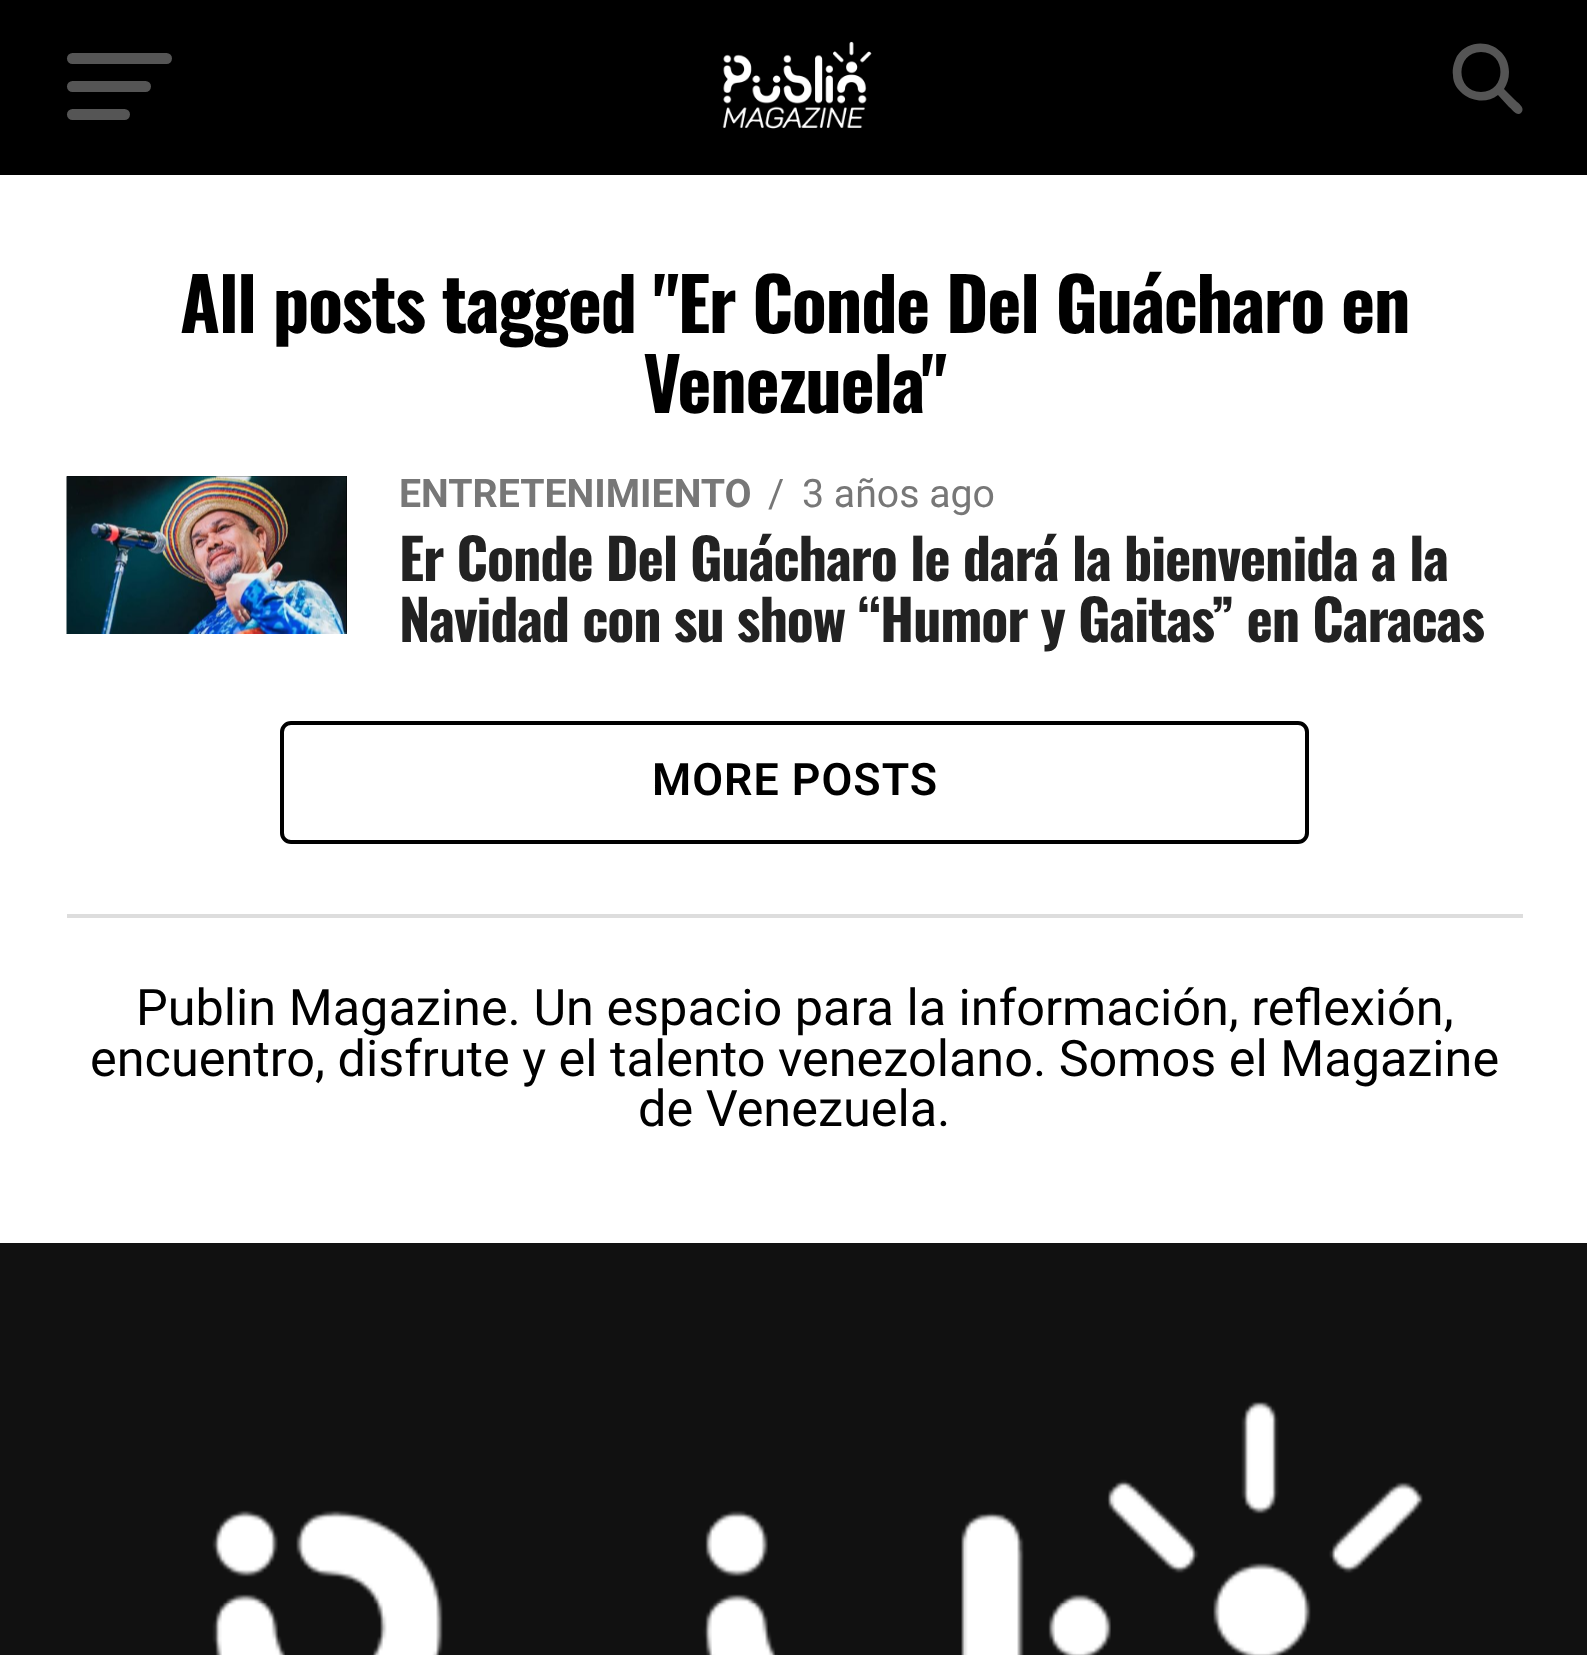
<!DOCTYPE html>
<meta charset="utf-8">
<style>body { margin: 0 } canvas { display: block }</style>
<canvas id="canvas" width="1587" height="1655"></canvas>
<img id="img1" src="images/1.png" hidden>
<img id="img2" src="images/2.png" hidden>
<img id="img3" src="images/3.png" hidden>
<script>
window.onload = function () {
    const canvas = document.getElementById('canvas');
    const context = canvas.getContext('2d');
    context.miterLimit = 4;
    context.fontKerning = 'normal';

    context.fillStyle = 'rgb(255, 255, 255)';
    context.fillRect(0, 0, 1587, 1655);
    context.fillStyle = 'rgb(0, 0, 0)';
    context.fillRect(0, 0, 1587, 175);
    context.fillStyle = 'rgb(85, 85, 85)';
    context.beginPath();
    context.roundRect(67, 53, 105, 11, 5.5);
    context.fill();
    context.beginPath();
    context.roundRect(67, 81, 84, 11, 5.5);
    context.fill();
    context.beginPath();
    context.roundRect(67, 109, 63, 11, 5.5);
    context.fill();
    context.drawImage(document.getElementById('img1'), 722, 41, 150, 88);
    context.beginPath();
    context.moveTo(1509, 72);
    context.bezierCurveTo(1509, 79, 1507, 84, 1504, 89);
    context.lineTo(1515, 100);
    context.bezierCurveTo(1518, 103, 1526, 108, 1521, 113);
    context.bezierCurveTo(1517, 117, 1512, 109, 1509, 107);
    context.lineTo(1498, 95);
    context.bezierCurveTo(1488, 103, 1473, 102, 1463, 94);
    context.bezierCurveTo(1457, 89, 1453, 83, 1453, 75);
    context.bezierCurveTo(1452, 69, 1454, 62, 1457, 56);
    context.bezierCurveTo(1473, 33, 1509, 44, 1509, 72);
    context.closePath();
    context.moveTo(1481, 92);
    context.bezierCurveTo(1507, 92, 1507, 52, 1481, 52);
    context.bezierCurveTo(1455, 52, 1455, 92, 1481, 92);
    context.closePath();
    context.fill();
    context.fillStyle = 'rgb(0, 0, 0)';
    context.fillRect(67, 476, 280, 158);
    context.drawImage(document.getElementById('img2'), 66, 476, 281, 158);
    context.beginPath();
    context.roundRect(282, 723, 1025, 119, 9);
    context.strokeStyle = 'rgb(0, 0, 0)';
    context.lineWidth = 4;
    context.stroke();
    context.fillStyle = 'rgb(221, 221, 221)';
    context.fillRect(67, 914, 1456, 4);
    context.fillStyle = 'rgb(17, 17, 17)';
    context.fillRect(0, 1243, 1587, 412);
    context.drawImage(document.getElementById('img3'), 212, 1401, 1211, 254);
    context.letterSpacing = '-1.45px';
    context.font = 'bold 72.75px Oswald';
    context.fillStyle = 'rgb(0, 0, 0)';
    context.fillText('All posts tagged "Er Conde Del Guácharo en', 180, 333);
    context.fillText('Venezuela"', 643, 413);
    context.letterSpacing = '0px';
    context.font = 'bold 39.25px Roboto';
    context.fillStyle = 'rgb(119, 119, 119)';
    context.fillText('ENTRETENIMIENTO', 399, 507);
    context.font = '39.25px Roboto';
    context.fillText('/', 768, 507);
    context.fillText('3 años ago', 802, 507);
    context.letterSpacing = '-1.1px';
    context.font = 'bold 56px Oswald';
    context.fillStyle = 'rgb(34, 34, 34)';
    context.fillText('Er Conde Del Guácharo le dará la bienvenida a la', 399, 581);
    context.fillText('Navidad con su show “Humor y Gaitas” en Caracas', 399, 642);
    context.letterSpacing = '1px';
    context.font = '600 44.75px Roboto';
    context.fillStyle = 'rgb(0, 0, 0)';
    context.fillText('MORE POSTS', 652, 795);
    context.letterSpacing = '0px';
    context.font = '50.4px Roboto';
    context.fillText('Publin Magazine. Un espacio para la información, reflexión,', 136, 1025);
    context.fillText('encuentro, disfrute y el talento venezolano. Somos el Magazine', 90, 1076);
    context.fillText('de Venezuela.', 638, 1126);
};
</script>
